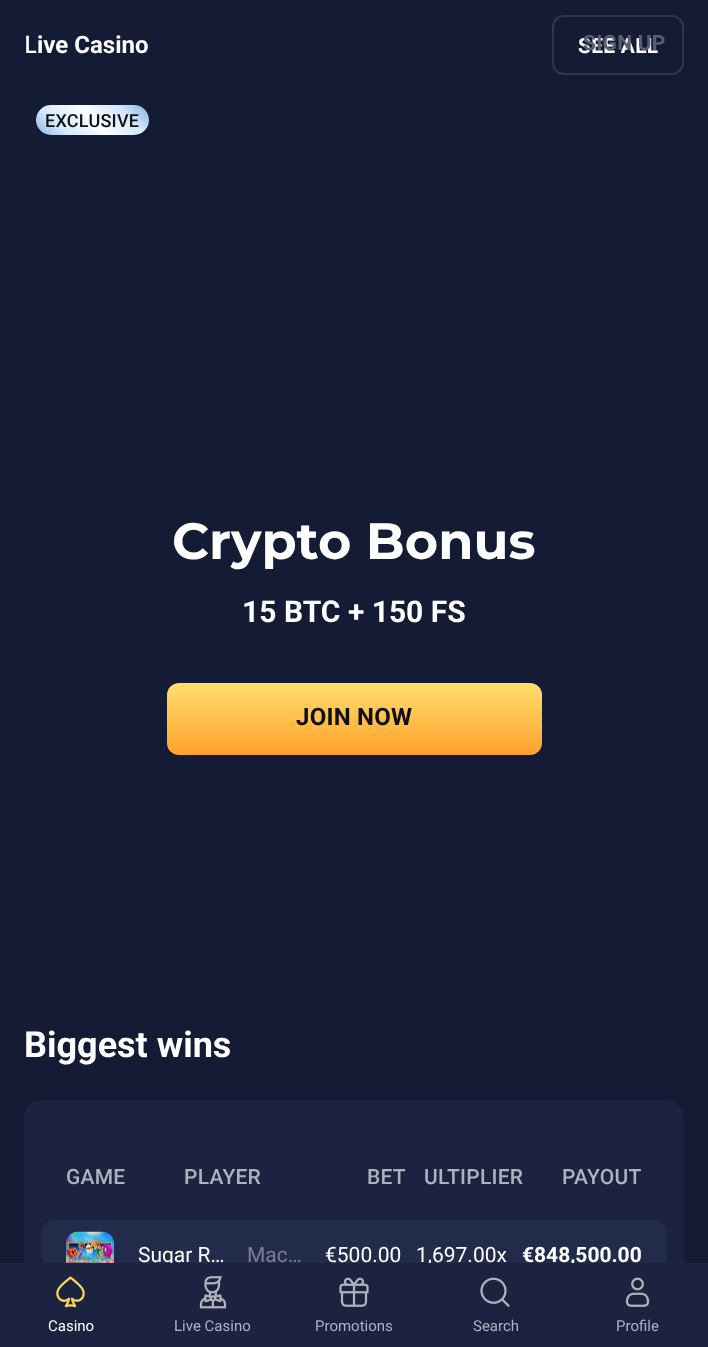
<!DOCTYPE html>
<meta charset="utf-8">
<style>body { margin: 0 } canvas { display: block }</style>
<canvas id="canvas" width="708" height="1347"></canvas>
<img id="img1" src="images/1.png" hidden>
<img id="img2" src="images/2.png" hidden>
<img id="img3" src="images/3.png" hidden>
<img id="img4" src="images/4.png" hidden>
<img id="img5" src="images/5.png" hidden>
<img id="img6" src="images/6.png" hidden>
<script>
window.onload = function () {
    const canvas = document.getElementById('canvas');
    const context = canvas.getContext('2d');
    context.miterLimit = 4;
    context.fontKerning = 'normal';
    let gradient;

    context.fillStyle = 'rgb(20, 27, 52)';
    context.fillRect(0, 0, 708, 1347);
    context.beginPath();
    context.roundRect(553, 16, 130, 58, 11);
    context.strokeStyle = 'rgb(48, 54, 76)';
    context.lineWidth = 2;
    context.stroke();
    gradient = context.createLinearGradient(128, 84, 57, 156);
    gradient.addColorStop(0, 'rgb(132, 175, 224)');
    gradient.addColorStop(0.23, 'rgb(211, 231, 255)');
    gradient.addColorStop(0.5, 'rgb(250, 253, 251)');
    gradient.addColorStop(0.79, 'rgb(211, 231, 255)');
    gradient.addColorStop(1, 'rgb(132, 175, 224)');
    context.fillStyle = gradient;
    context.beginPath();
    context.roundRect(36, 105, 113, 30, 15);
    context.fill();
    gradient = context.createLinearGradient(354, 683, 354, 755);
    gradient.addColorStop(0, 'rgb(255, 223, 110)');
    gradient.addColorStop(1, 'rgb(255, 161, 43)');
    context.fillStyle = gradient;
    context.beginPath();
    context.roundRect(167, 683, 375, 72, 12);
    context.fill();
    context.fillStyle = 'rgb(27, 35, 65)';
    context.beginPath();
    context.roundRect(24, 1100, 660, 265, 18);
    context.fill();
    context.fillStyle = 'rgb(34, 43, 73)';
    context.beginPath();
    context.roundRect(42, 1220, 624, 72, 12);
    context.fill();
    context.drawImage(document.getElementById('img1'), 66, 1231, 48, 32);
    context.font = '500 24px Noto Sans';
    context.fillStyle = 'rgb(255, 255, 255)';
    context.fillText('L', 24, 53);
    context.font = 'bold 24px Roboto';
    context.fillText('ive Casino', 37, 53);
    context.letterSpacing = '0.25px';
    context.font = 'bold 21px Roboto';
    context.fillText('SEE ALL', 578, 53);
    context.fillStyle = 'rgb(89, 94, 112)';
    context.fillText('SIGN UP', 583, 50);
    context.font = '500 18px Roboto';
    context.fillStyle = 'rgb(15, 15, 20)';
    context.fillText('EXCLUSIVE', 45, 127);
    context.letterSpacing = '0px';
    context.font = 'bold 51px Montserrat';
    context.fillStyle = 'rgb(255, 255, 255)';
    context.fillText('Crypto Bonus', 172, 559);
    context.font = 'bold 30px Roboto';
    context.fillText('15 BTC + 150 FS', 242, 622);
    context.letterSpacing = '0.25px';
    context.font = 'bold 24px Roboto';
    context.fillStyle = 'rgb(15, 15, 20)';
    context.fillText('JOIN NOW', 296, 725);
    context.letterSpacing = '0px';
    context.font = 'bold 36px Roboto';
    context.fillStyle = 'rgb(255, 255, 255)';
    context.fillText('Biggest wins', 24, 1057);
    context.letterSpacing = '0.25px';
    context.font = '500 21px Roboto';
    context.fillStyle = 'rgb(175, 178, 189)';
    context.fillText('GAME', 66, 1184);
    context.fillText('PLAYER', 184, 1184);
    context.fillText('BET', 367, 1184);
    context.fillText('ULTIPLIER', 424, 1184);
    context.fillText('PAYOUT', 562, 1184);
    context.letterSpacing = '0px';
    context.font = '21px Roboto';
    context.fillStyle = 'rgb(255, 255, 255)';
    context.fillText('Sugar R…', 138, 1262);
    context.fillStyle = 'rgb(122, 128, 146)';
    context.fillText('Mac…', 247, 1262);
    context.fillStyle = 'rgb(255, 255, 255)';
    context.fillText('€500.00', 325, 1262);
    context.fillText('1,697.00x', 416, 1262);
    context.font = 'bold 21px Roboto';
    context.fillText('€848,500.00', 522, 1262);
    context.fillStyle = 'rgb(27, 35, 65)';
    context.fillRect(0, 1263, 708, 84);
    context.drawImage(document.getElementById('img2'), 56, 1276, 29, 32);
    context.font = '15px Roboto';
    context.fillStyle = 'rgb(255, 255, 255)';
    context.fillText('Casino', 48, 1331);
    context.drawImage(document.getElementById('img3'), 199, 1276, 28, 33);
    context.fillStyle = 'rgb(175, 178, 189)';
    context.fillText('Live Casino', 174, 1331);
    context.drawImage(document.getElementById('img4'), 339, 1277, 30, 30);
    context.fillText('Promotions', 315, 1331);
    context.drawImage(document.getElementById('img5'), 480, 1277, 30, 30);
    context.fillText('Search', 473, 1331);
    context.drawImage(document.getElementById('img6'), 625, 1277, 25, 30);
    context.fillText('Profile', 616, 1331);
};
</script>
